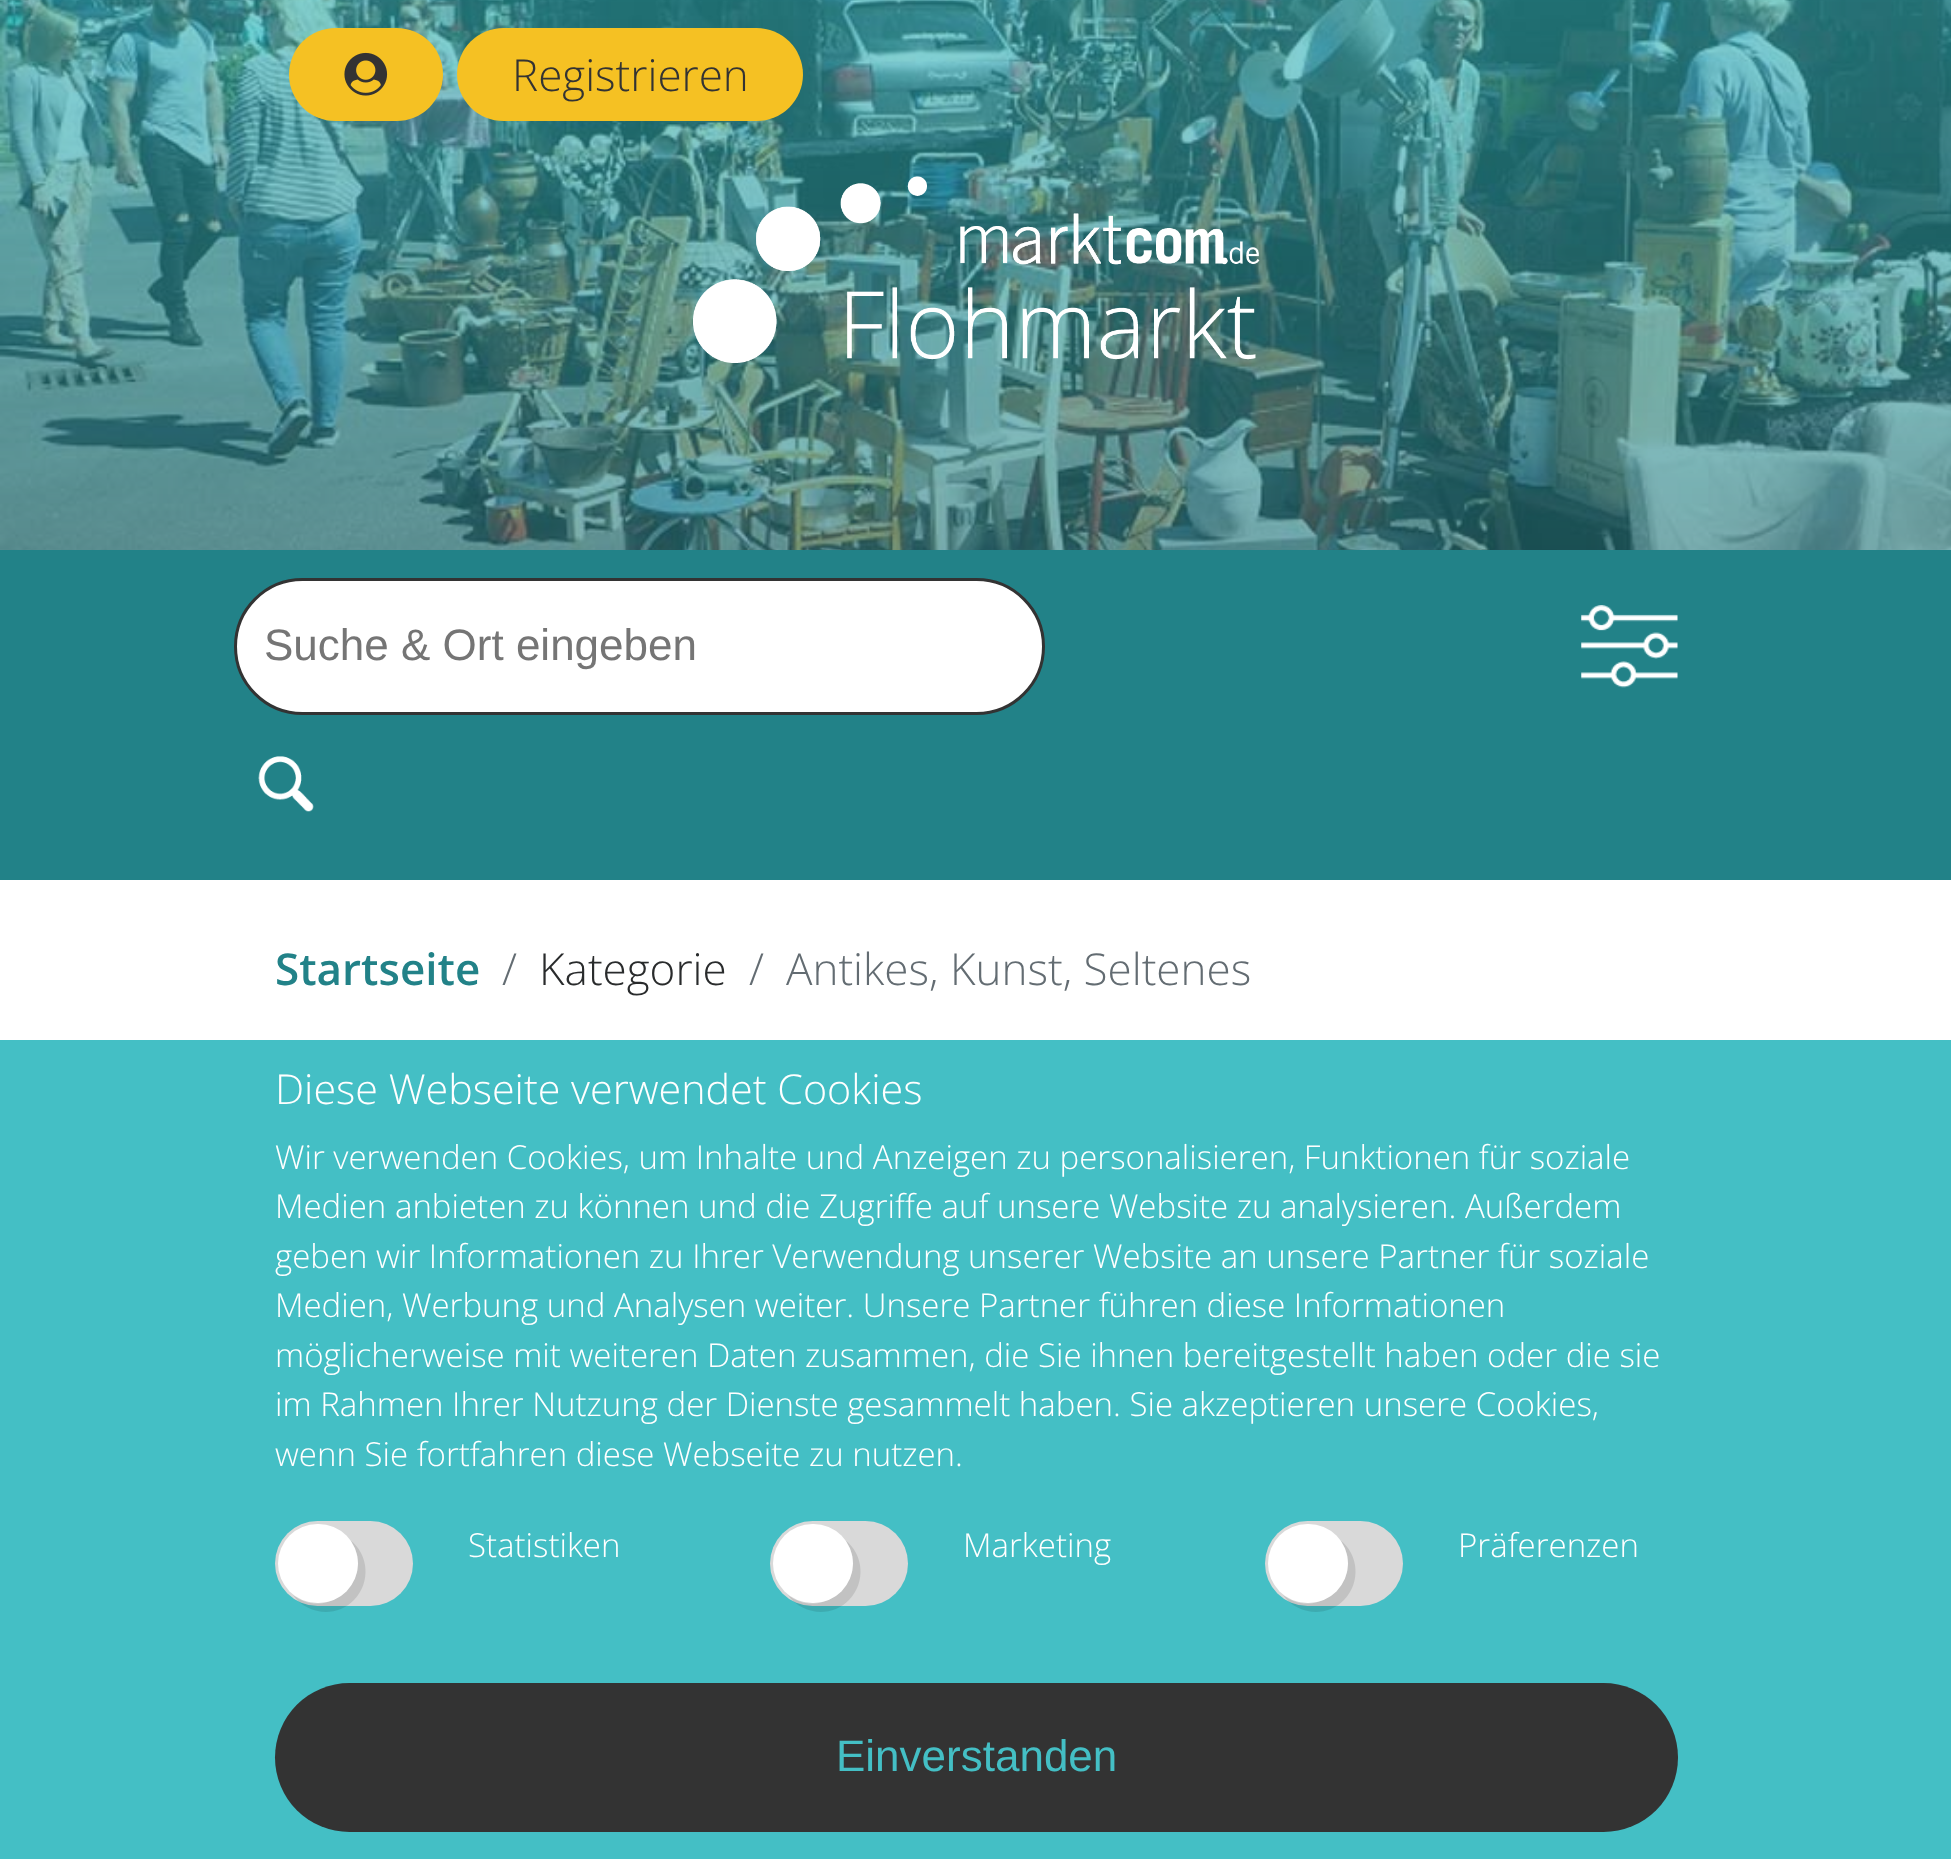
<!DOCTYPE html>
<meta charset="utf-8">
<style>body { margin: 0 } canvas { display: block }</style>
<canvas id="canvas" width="1951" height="1859"></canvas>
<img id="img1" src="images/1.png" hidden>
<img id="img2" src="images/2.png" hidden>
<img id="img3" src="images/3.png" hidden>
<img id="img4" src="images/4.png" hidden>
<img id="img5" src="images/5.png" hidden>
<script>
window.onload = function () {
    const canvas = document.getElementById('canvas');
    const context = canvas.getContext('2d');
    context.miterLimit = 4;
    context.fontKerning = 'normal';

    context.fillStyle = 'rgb(255, 255, 255)';
    context.fillRect(0, 0, 1951, 1859);
    context.drawImage(document.getElementById('img1'), 0, 0, 1951, 550);
    context.fillStyle = 'rgb(245, 193, 35)';
    context.beginPath();
    context.roundRect(289, 28, 154, 93, 46.5);
    context.fill();
    context.drawImage(document.getElementById('img2'), 344, 52, 44, 44);
    context.beginPath();
    context.roundRect(457, 28, 346, 93, 46.5);
    context.fill();
    context.drawImage(document.getElementById('img3'), 693, 176, 567, 187);
    context.fillStyle = 'rgb(34, 130, 136)';
    context.fillRect(0, 550, 1951, 330);
    context.fillStyle = 'rgb(255, 255, 255)';
    context.beginPath();
    context.roundRect(235.5, 579.5, 808, 134, 67);
    context.fill();
    context.strokeStyle = 'rgb(51, 51, 51)';
    context.lineWidth = 3;
    context.stroke();
    context.drawImage(document.getElementById('img4'), 258, 756, 56, 56);
    context.drawImage(document.getElementById('img5'), 1581, 605, 97, 83);
    context.fillStyle = 'rgb(68, 191, 197)';
    context.fillRect(0, 1040, 1951, 819);
    context.fillStyle = 'rgb(217, 217, 217)';
    context.beginPath();
    context.roundRect(275, 1521, 138, 85, 42.5);
    context.fill();
    context.fillStyle = 'rgba(0, 0, 0, 0.1)';
    context.beginPath();
    context.moveTo(293, 1595);
    context.bezierCurveTo(307, 1615, 337, 1618, 354, 1600);
    context.bezierCurveTo(371, 1583, 369, 1554, 350, 1540);
    context.bezierCurveTo(377, 1577, 329, 1623, 293, 1595);
    context.closePath();
    context.fill();
    context.fillStyle = 'rgb(255, 255, 255)';
    context.beginPath();
    context.roundRect(278, 1524, 80, 79, 39.5);
    context.fill();
    context.fillStyle = 'rgb(217, 217, 217)';
    context.beginPath();
    context.roundRect(770, 1521, 138, 85, 42.5);
    context.fill();
    context.fillStyle = 'rgba(0, 0, 0, 0.1)';
    context.beginPath();
    context.moveTo(788, 1595);
    context.bezierCurveTo(802, 1615, 832, 1618, 849, 1600);
    context.bezierCurveTo(866, 1583, 864, 1554, 845, 1540);
    context.bezierCurveTo(872, 1577, 824, 1623, 788, 1595);
    context.closePath();
    context.fill();
    context.fillStyle = 'rgb(255, 255, 255)';
    context.beginPath();
    context.roundRect(773, 1524, 80, 79, 39.5);
    context.fill();
    context.fillStyle = 'rgb(217, 217, 217)';
    context.beginPath();
    context.roundRect(1265, 1521, 138, 85, 42.5);
    context.fill();
    context.fillStyle = 'rgba(0, 0, 0, 0.1)';
    context.beginPath();
    context.moveTo(1283, 1595);
    context.bezierCurveTo(1297, 1615, 1327, 1618, 1344, 1600);
    context.bezierCurveTo(1361, 1583, 1359, 1554, 1340, 1540);
    context.bezierCurveTo(1367, 1577, 1319, 1623, 1283, 1595);
    context.closePath();
    context.fill();
    context.fillStyle = 'rgb(255, 255, 255)';
    context.beginPath();
    context.roundRect(1268, 1524, 80, 79, 39.5);
    context.fill();
    context.fillStyle = 'rgb(51, 51, 51)';
    context.beginPath();
    context.roundRect(275, 1683, 1403, 149, 74.5);
    context.fill();
    context.font = '300 44px Open Sans';
    context.fillText('Registrieren', 512, 91);
    context.font = '44px Liberation Sans';
    context.fillStyle = 'rgb(117, 117, 117)';
    context.fillText('Suche & Ort eingeben', 264, 660);
    context.font = '600 44px Open Sans';
    context.fillStyle = 'rgb(34, 130, 136)';
    context.fillText('Startseite', 275, 985);
    context.font = '300 44px Open Sans';
    context.fillStyle = 'rgb(99, 108, 114)';
    context.fillText('/', 502, 985);
    context.fillStyle = 'rgb(41, 43, 44)';
    context.fillText('Kategorie', 539, 985);
    context.fillStyle = 'rgb(99, 108, 114)';
    context.fillText('/', 749, 985);
    context.fillText('Antikes, Kunst, Seltenes', 786, 985);
    context.font = '300 41.25px Open Sans';
    context.fillStyle = 'rgb(255, 255, 255)';
    context.fillText('Diese Webseite verwendet Cookies', 275, 1104);
    context.font = '300 33px Open Sans';
    context.fillText('Wir verwenden Cookies, um Inhalte und Anzeigen zu personalisieren, Funktionen für soziale', 275, 1169);
    context.fillText('Medien anbieten zu können und die Zugriffe auf unsere Website zu analysieren. Außerdem', 275, 1218);
    context.fillText('geben wir Informationen zu Ihrer Verwendung unserer Website an unsere Partner für soziale', 275, 1268);
    context.fillText('Medien, Werbung und Analysen weiter. Unsere Partner führen diese Informationen', 275, 1317);
    context.fillText('möglicherweise mit weiteren Daten zusammen, die Sie ihnen bereitgestellt haben oder die sie', 275, 1367);
    context.fillText('im Rahmen Ihrer Nutzung der Dienste gesammelt haben. Sie akzeptieren unsere Cookies,', 275, 1416);
    context.fillText('wenn Sie fortfahren diese Webseite zu nutzen.', 275, 1466);
    context.fillText('Statistiken', 468, 1557);
    context.fillText('Marketing', 963, 1557);
    context.fillText('Präferenzen', 1458, 1557);
    context.font = '44px Liberation Sans';
    context.fillStyle = 'rgb(68, 191, 197)';
    context.fillText('Einverstanden', 836, 1771);
};
</script>
